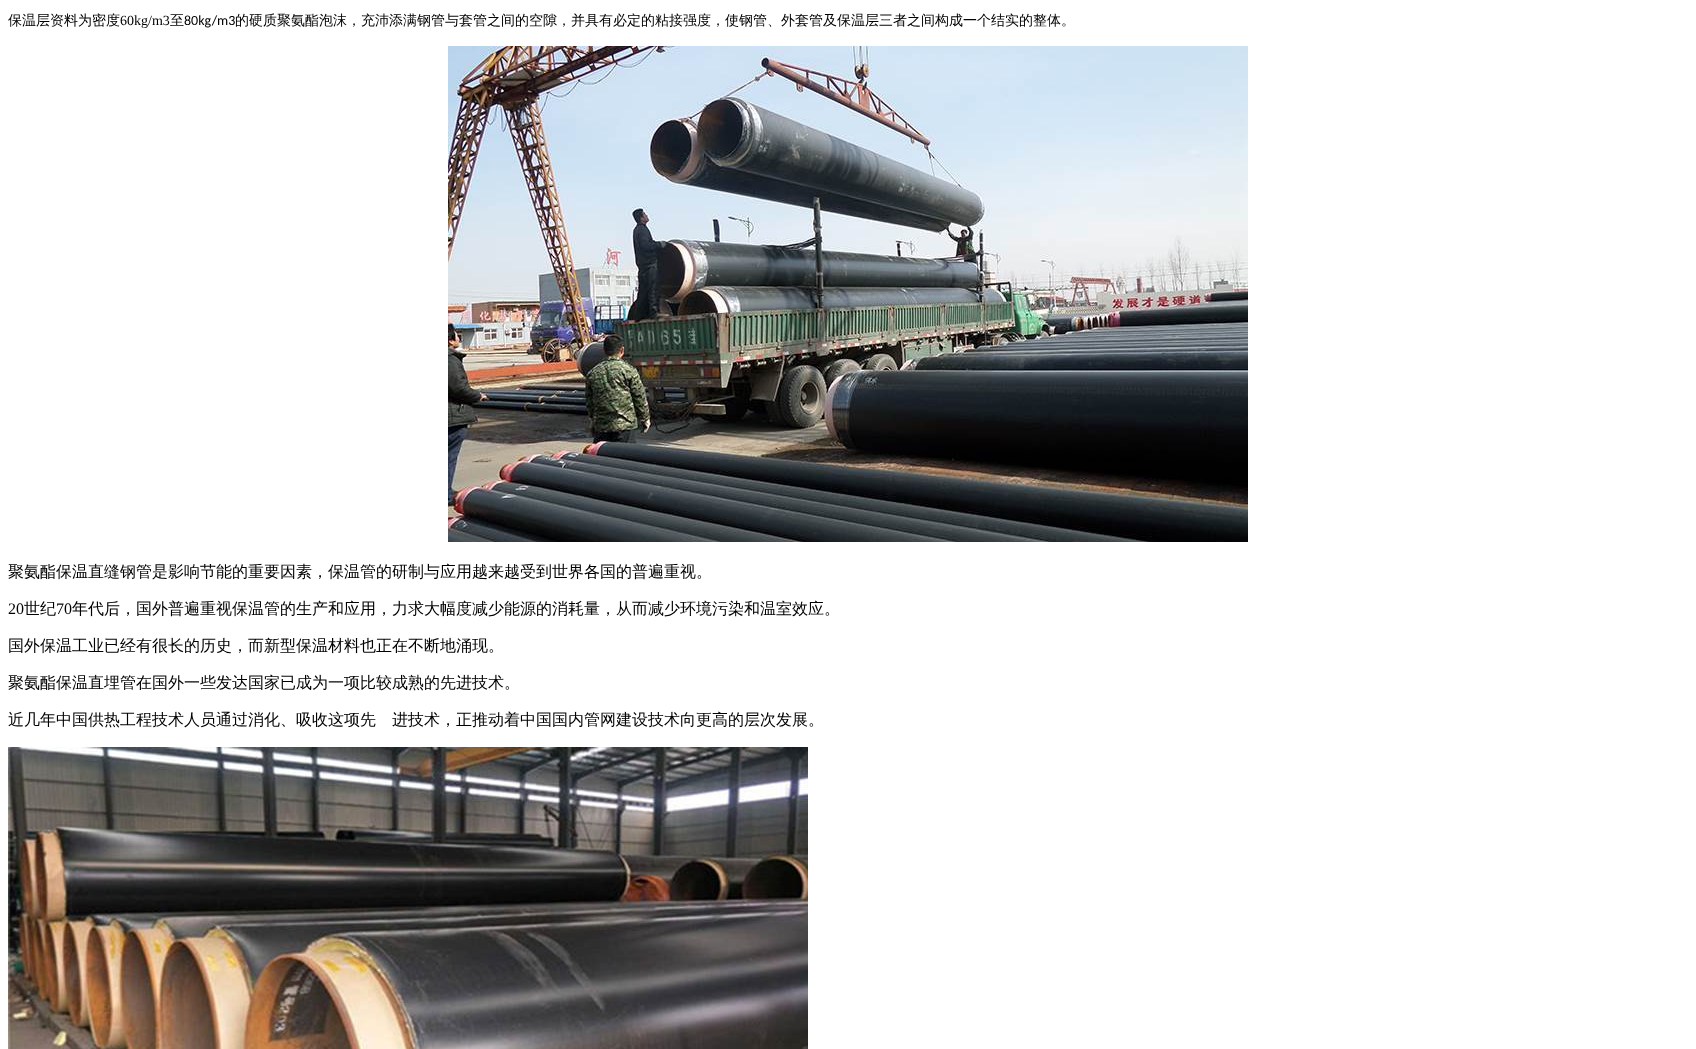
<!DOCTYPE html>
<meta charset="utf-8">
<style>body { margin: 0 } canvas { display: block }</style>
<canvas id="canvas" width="1696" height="1049"></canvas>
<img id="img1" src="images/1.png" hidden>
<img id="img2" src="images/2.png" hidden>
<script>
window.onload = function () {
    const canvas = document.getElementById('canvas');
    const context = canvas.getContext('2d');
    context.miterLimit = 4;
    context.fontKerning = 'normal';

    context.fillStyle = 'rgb(255, 255, 255)';
    context.fillRect(0, 0, 1696, 1049);
    context.drawImage(document.getElementById('img1'), 448, 46, 800, 496);
    context.drawImage(document.getElementById('img2'), 8, 747, 800, 302);
    context.font = '500 14px WenQuanYi Zen Hei';
    context.fillStyle = 'rgb(0, 0, 0)';
    context.fillText('保温层资料为密度', 8, 25);
    context.font = '14px Liberation Serif';
    context.fillText('60kg/m3', 120, 25);
    context.font = '500 14px WenQuanYi Zen Hei';
    context.fillText('至', 170, 25);
    context.font = '14px Carlito';
    context.fillText('80kg/m3', 184, 25);
    context.font = '500 14px WenQuanYi Zen Hei';
    context.fillText('的硬质聚氨酯泡沫，充沛添满钢管与套管之间的空隙，并具有必定的粘接强度，使钢管、外套管及保温层三者之间构成一个结实的整体。', 235, 25);
    context.font = '500 16px WenQuanYi Zen Hei';
    context.fillText('聚氨酯保温直缝钢管是影响节能的重要因素，保温管的研制与应用越来越受到世界各国的普遍重视。', 8, 577);
    context.font = '16px Liberation Serif';
    context.fillText('20', 8, 614);
    context.font = '500 16px WenQuanYi Zen Hei';
    context.fillText('世纪', 24, 614);
    context.font = '16px Liberation Serif';
    context.fillText('70', 56, 614);
    context.font = '500 16px WenQuanYi Zen Hei';
    context.fillText('年代后，国外普遍重视保温管的生产和应用，力求大幅度减少能源的消耗量，从而减少环境污染和温室效应。', 72, 614);
    context.fillText('国外保温工业已经有很长的历史，而新型保温材料也正在不断地涌现。', 8, 651);
    context.fillText('聚氨酯保温直埋管在国外一些发达国家已成为一项比较成熟的先进技术。', 8, 688);
    context.fillText('近几年中国供热工程技术人员通过消化、吸收这项先', 8, 725);
    context.fillText('进技术，正推动着中国国内管网建设技术向更高的层次发展。', 392, 725);
};
</script>
